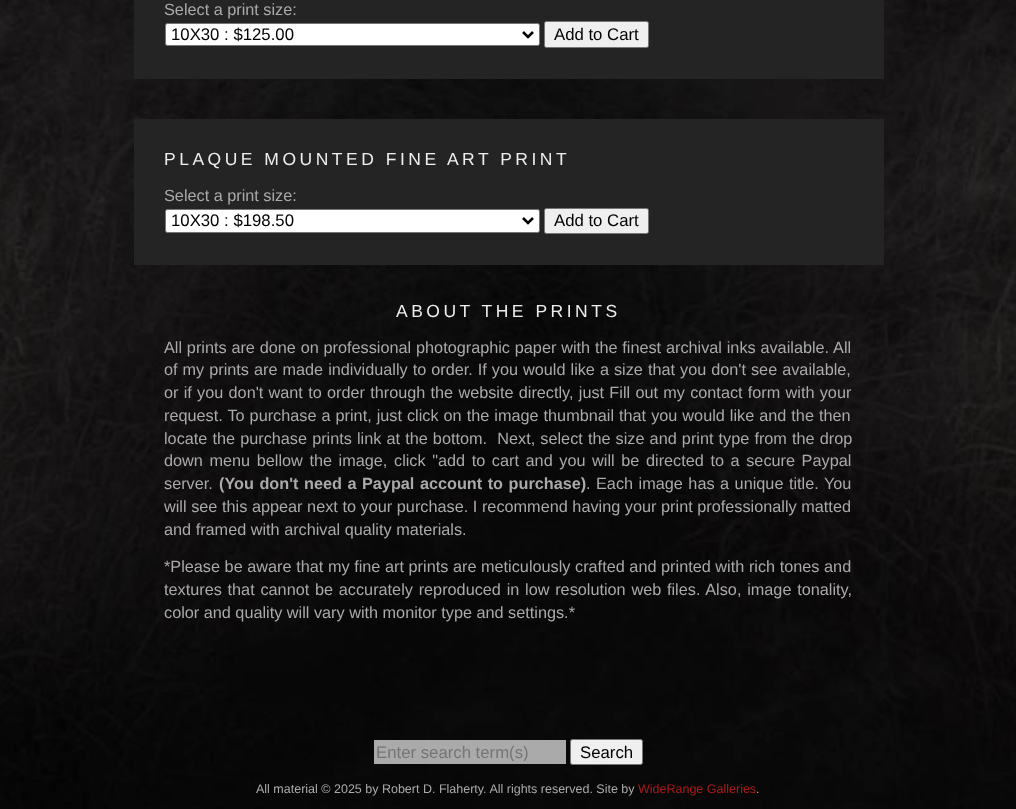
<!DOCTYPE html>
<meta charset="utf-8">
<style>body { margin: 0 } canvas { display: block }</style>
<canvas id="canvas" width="1016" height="809"></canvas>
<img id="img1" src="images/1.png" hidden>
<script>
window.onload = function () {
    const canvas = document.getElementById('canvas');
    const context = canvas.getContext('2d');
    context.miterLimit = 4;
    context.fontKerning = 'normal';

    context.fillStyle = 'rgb(255, 255, 255)';
    context.fillRect(0, 0, 1016, 809);
    context.drawImage(document.getElementById('img1'), 0, 0, 1016, 809);
    context.fillStyle = 'rgb(36, 36, 36)';
    context.fillRect(134, 0, 750, 79);
    context.fillStyle = 'rgb(255, 255, 255)';
    context.beginPath();
    context.roundRect(165.5, 23.5, 374, 22, 2);
    context.fill();
    context.strokeStyle = 'rgb(118, 118, 118)';
    context.stroke();
    context.beginPath();
    context.moveTo(523, 32);
    context.lineTo(528, 37);
    context.lineTo(533, 32);
    context.strokeStyle = 'rgb(0, 0, 0)';
    context.lineWidth = 2.5;
    context.stroke();
    context.fillStyle = 'rgb(239, 239, 239)';
    context.beginPath();
    context.roundRect(544.5, 21.5, 104, 26, 2);
    context.fill();
    context.strokeStyle = 'rgb(118, 118, 118)';
    context.lineWidth = 1;
    context.stroke();
    context.fillStyle = 'rgb(36, 36, 36)';
    context.fillRect(134, 119, 750, 146);
    context.fillStyle = 'rgb(255, 255, 255)';
    context.beginPath();
    context.roundRect(165.5, 209.5, 374, 23, 2);
    context.fill();
    context.stroke();
    context.beginPath();
    context.moveTo(523, 218);
    context.lineTo(528, 223);
    context.lineTo(533, 218);
    context.strokeStyle = 'rgb(0, 0, 0)';
    context.lineWidth = 2.5;
    context.stroke();
    context.fillStyle = 'rgb(239, 239, 239)';
    context.beginPath();
    context.roundRect(544.5, 208.5, 104, 25, 2);
    context.fill();
    context.strokeStyle = 'rgb(118, 118, 118)';
    context.lineWidth = 1;
    context.stroke();
    context.fillStyle = 'rgb(170, 170, 170)';
    context.fillRect(374, 740, 192, 24);
    context.fillStyle = 'rgb(239, 239, 239)';
    context.beginPath();
    context.roundRect(570.5, 739.5, 72, 25, 2);
    context.fill();
    context.stroke();
    context.font = '16.25px Liberation Sans';
    context.fillStyle = 'rgb(170, 170, 170)';
    context.fillText('Select a print size:', 164, 15);
    context.font = '16.75px Liberation Sans';
    context.fillStyle = 'rgb(0, 0, 0)';
    context.fillText('10X30 : $125.00', 171, 40);
    context.fillText('Add to Cart', 554, 40);
    context.letterSpacing = '3.5px';
    context.font = '17.5px Liberation Sans';
    context.fillStyle = 'rgb(238, 238, 238)';
    context.fillText('PLAQUE MOUNTED FINE ART PRINT', 164, 165);
    context.letterSpacing = '0px';
    context.font = '16.25px Liberation Sans';
    context.fillStyle = 'rgb(170, 170, 170)';
    context.fillText('Select a print size:', 164, 201);
    context.font = '16.75px Liberation Sans';
    context.fillStyle = 'rgb(0, 0, 0)';
    context.fillText('10X30 : $198.50', 171, 226);
    context.fillText('Add to Cart', 554, 226);
    context.letterSpacing = '3.5px';
    context.font = '17.5px Liberation Sans';
    context.fillStyle = 'rgb(238, 238, 238)';
    context.fillText('ABOUT THE PRINTS', 396, 317);
    context.letterSpacing = '0px';
    context.wordSpacing = '0.3px';
    context.font = '16.25px Liberation Sans';
    context.fillStyle = 'rgb(170, 170, 170)';
    context.fillText('All prints are done on professional photographic paper with the finest archival inks available. All', 164, 353);
    context.wordSpacing = '0.5px';
    context.fillText('of my prints are made individually to order. If you would like a size that you don\'t see available,', 164, 375);
    context.wordSpacing = '0.75px';
    context.fillText('or if you don\'t want to order through the website directly, just Fill out my contact form with your', 164, 398);
    context.wordSpacing = '0.5px';
    context.fillText('request. To purchase a print, just click on the image thumbnail that you would like and the then', 164, 421);
    context.wordSpacing = '0.6px';
    context.fillText('locate the purchase prints link at the bottom.  Next, select the size and print type from the drop', 164, 444);
    context.wordSpacing = '2.1px';
    context.fillText('down menu bellow the image, click "add to cart and you will be directed to a secure Paypal', 164, 466);
    context.wordSpacing = '0px';
    context.fillText('server.', 164, 489);
    context.wordSpacing = '1px';
    context.font = 'bold 16.25px Liberation Sans';
    context.fillText('(You don\'t need a Paypal account to purchase)', 219, 489);
    context.font = '16.25px Liberation Sans';
    context.fillText('. Each image has a unique title. You', 586, 489);
    context.wordSpacing = '0.1px';
    context.fillText('will see this appear next to your purchase. I recommend having your print professionally matted', 164, 512);
    context.wordSpacing = '0px';
    context.fillText('and framed with archival quality materials.', 164, 535);
    context.wordSpacing = '0.1px';
    context.fillText('*Please be aware that my fine art prints are meticulously crafted and printed with rich tones and', 164, 572);
    context.wordSpacing = '1.25px';
    context.fillText('textures that cannot be accurately reproduced in low resolution web files. Also, image tonality,', 164, 595);
    context.wordSpacing = '0px';
    context.fillText('color and quality will vary with monitor type and settings.*', 164, 618);
    context.save();
    context.beginPath();
    context.rect(376, 743, 188, 18);
    context.clip();
    context.font = '16.75px Liberation Sans';
    context.fillStyle = 'rgb(117, 117, 117)';
    context.fillText('Enter search term(s)', 376, 758);
    context.restore();
    context.font = '16.75px Liberation Sans';
    context.fillStyle = 'rgb(0, 0, 0)';
    context.fillText('Search', 580, 758);
    context.font = '12.5px Liberation Sans';
    context.fillStyle = 'rgb(170, 170, 170)';
    context.fillText('All material © 2025 by Robert D. Flaherty. All rights reserved. Site by', 256, 793);
    context.fillStyle = 'rgb(170, 27, 27)';
    context.fillText('WideRange Galleries', 638, 793);
    context.fillStyle = 'rgb(170, 170, 170)';
    context.fillText('.', 756, 793);
};
</script>
